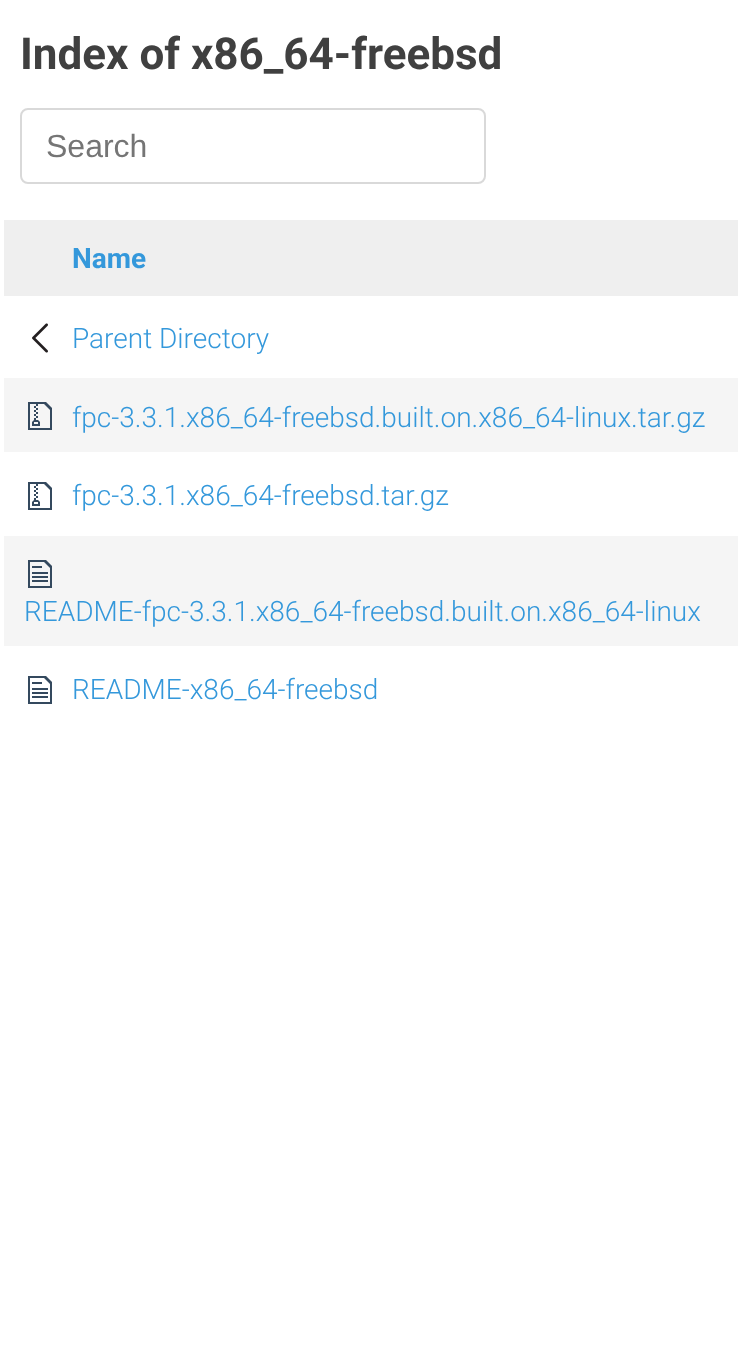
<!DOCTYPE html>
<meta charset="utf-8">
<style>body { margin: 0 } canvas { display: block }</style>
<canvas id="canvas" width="741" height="1370"></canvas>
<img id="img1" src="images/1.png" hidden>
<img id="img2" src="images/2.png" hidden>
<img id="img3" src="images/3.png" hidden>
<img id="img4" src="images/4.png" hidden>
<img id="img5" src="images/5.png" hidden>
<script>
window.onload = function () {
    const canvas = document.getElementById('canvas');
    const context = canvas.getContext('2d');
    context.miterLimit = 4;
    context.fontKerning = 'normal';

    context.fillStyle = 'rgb(255, 255, 255)';
    context.fillRect(0, 0, 741, 1370);
    context.beginPath();
    context.roundRect(21, 109, 464, 74, 7);
    context.strokeStyle = 'rgb(217, 217, 217)';
    context.lineWidth = 2;
    context.stroke();
    context.fillStyle = 'rgb(239, 239, 239)';
    context.fillRect(4, 220, 734, 76);
    context.drawImage(document.getElementById('img1'), 32, 323, 16, 30);
    context.fillStyle = 'rgb(245, 245, 245)';
    context.fillRect(4, 378, 734, 74);
    context.drawImage(document.getElementById('img2'), 28, 402, 24, 28);
    context.drawImage(document.getElementById('img3'), 28, 482, 24, 28);
    context.fillRect(4, 536, 734, 110);
    context.drawImage(document.getElementById('img4'), 28, 560, 24, 28);
    context.drawImage(document.getElementById('img5'), 28, 676, 24, 28);
    context.font = 'bold 44px Roboto';
    context.fillStyle = 'rgb(64, 64, 64)';
    context.fillText('Index of x86_64-freebsd', 20, 69);
    context.font = '32px Liberation Sans';
    context.fillStyle = 'rgb(117, 117, 117)';
    context.fillText('Search', 46, 157);
    context.font = 'bold 28px Roboto';
    context.fillStyle = 'rgb(52, 152, 219)';
    context.fillText('Name', 72, 268);
    context.font = '300 28px Roboto';
    context.fillText('Parent Directory', 72, 348);
    context.fillText('fpc-3.3.1.x86_64-freebsd.built.on.x86_64-linux.tar.gz', 72, 427);
    context.fillText('fpc-3.3.1.x86_64-freebsd.tar.gz', 72, 505);
    context.fillText('README-fpc-3.3.1.x86_64-freebsd.built.on.x86_64-linux', 24, 621);
    context.fillText('README-x86_64-freebsd', 72, 699);
};
</script>
